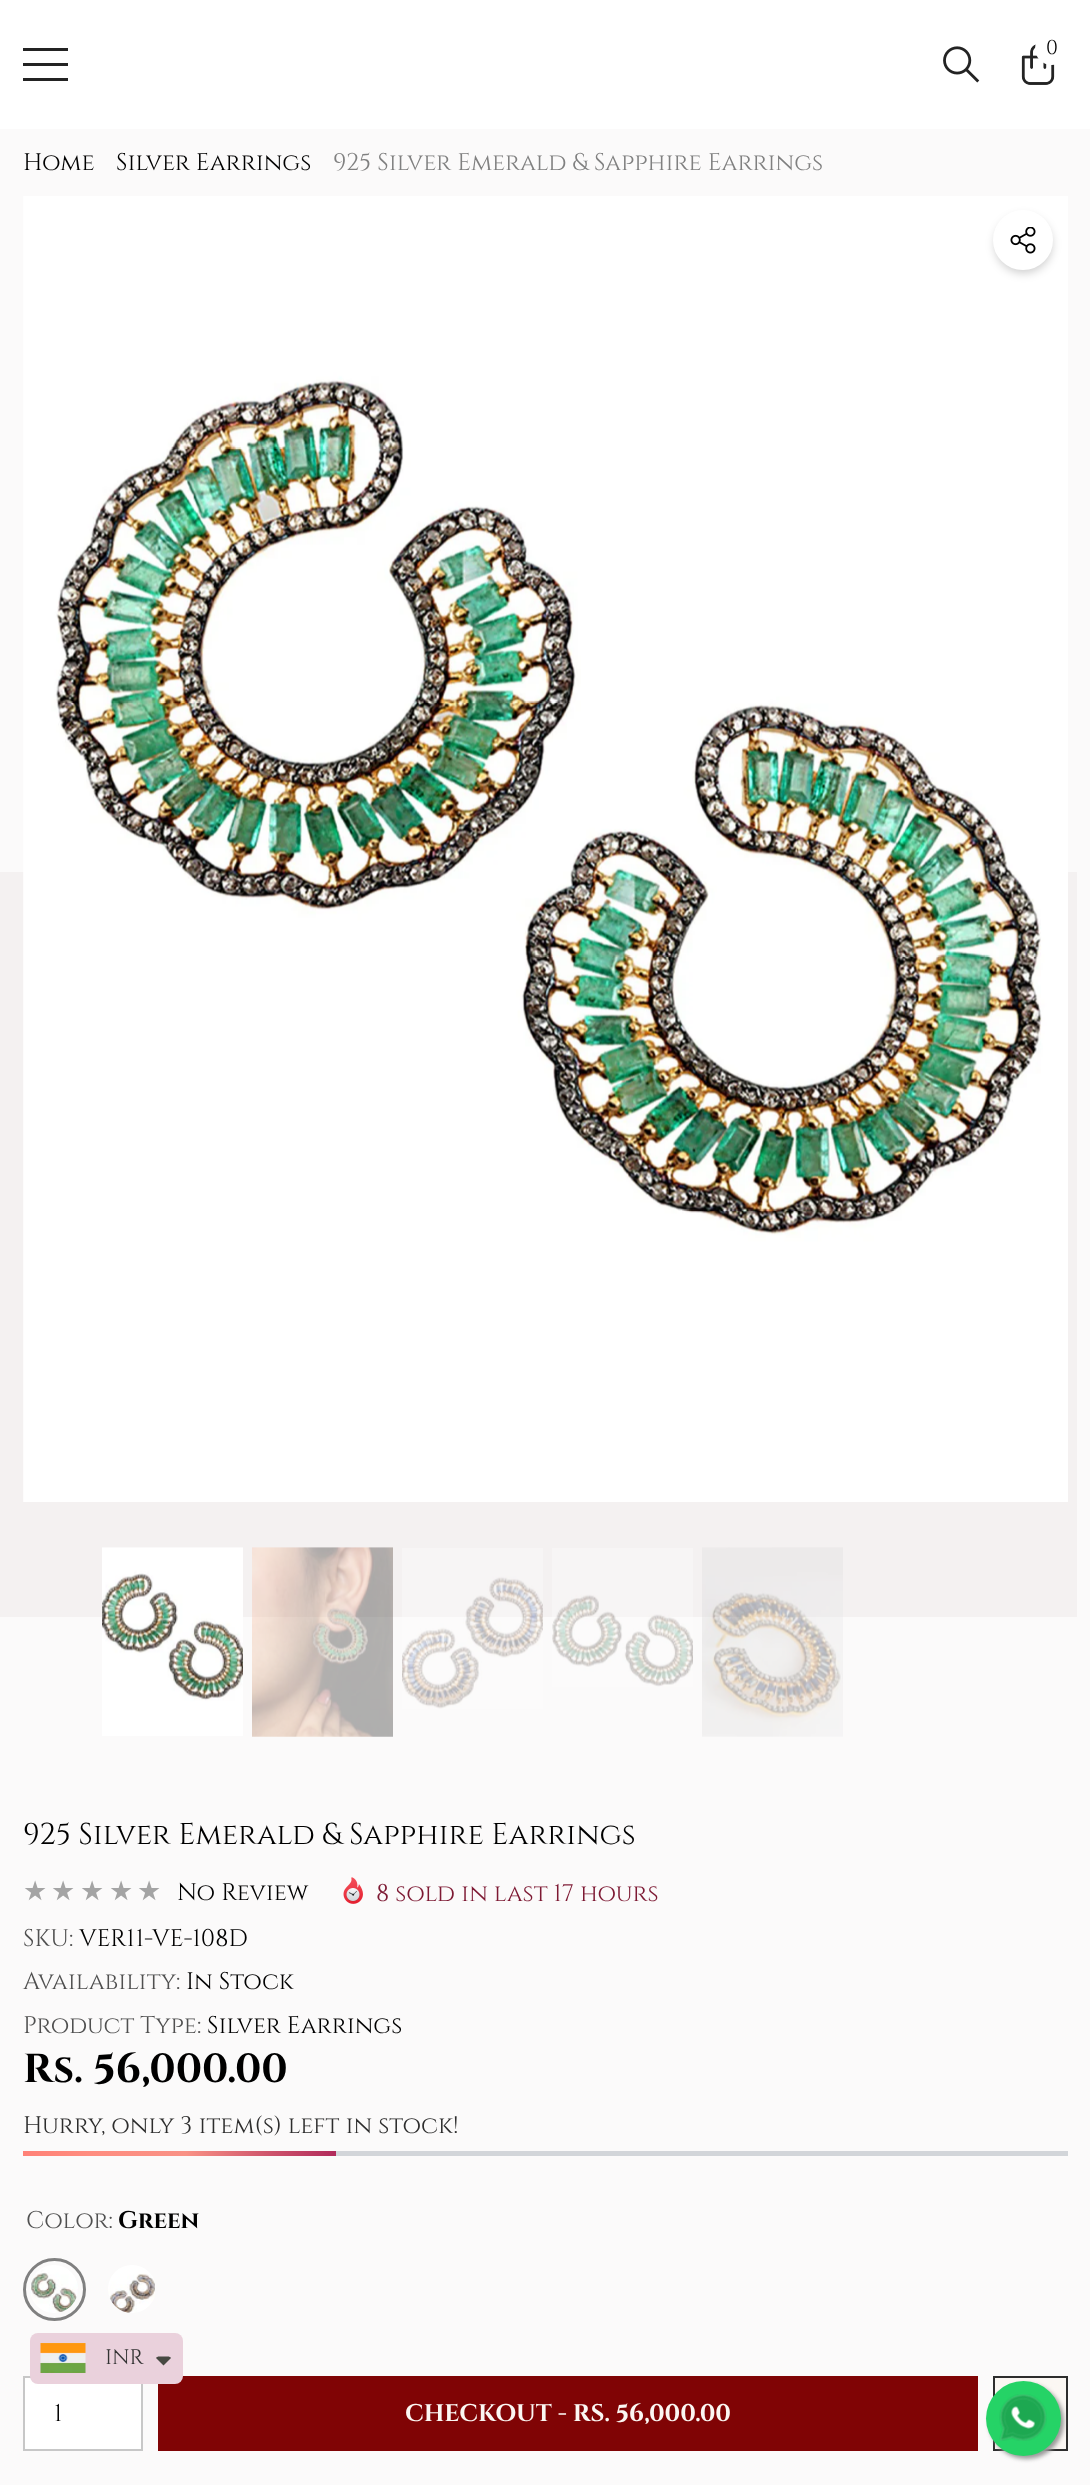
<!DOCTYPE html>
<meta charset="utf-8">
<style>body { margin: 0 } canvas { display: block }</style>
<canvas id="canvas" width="1090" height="2485"></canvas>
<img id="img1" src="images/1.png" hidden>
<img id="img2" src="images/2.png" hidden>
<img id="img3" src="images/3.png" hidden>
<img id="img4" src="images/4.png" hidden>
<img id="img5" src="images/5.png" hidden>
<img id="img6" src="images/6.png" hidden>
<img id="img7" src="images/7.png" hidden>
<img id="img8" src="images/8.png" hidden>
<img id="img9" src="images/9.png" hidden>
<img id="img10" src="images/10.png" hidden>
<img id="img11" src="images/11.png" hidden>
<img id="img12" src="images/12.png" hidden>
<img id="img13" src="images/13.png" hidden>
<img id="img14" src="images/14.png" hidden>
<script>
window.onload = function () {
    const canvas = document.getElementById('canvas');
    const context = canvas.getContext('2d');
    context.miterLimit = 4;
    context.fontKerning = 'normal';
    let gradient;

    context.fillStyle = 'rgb(251, 250, 250)';
    context.fillRect(0, 0, 1090, 2485);
    context.fillStyle = 'rgb(255, 255, 255)';
    context.fillRect(0, 0, 1090, 129);
    context.fillStyle = 'rgb(35, 35, 35)';
    context.fillRect(23, 63, 45, 3);
    context.fillRect(23, 48, 45, 3);
    context.fillRect(23, 78, 45, 3);
    context.drawImage(document.getElementById('img1'), 943, 46, 37, 37);
    context.drawImage(document.getElementById('img2'), 1021, 44, 34, 41);
    context.fillStyle = 'rgb(255, 255, 255)';
    context.beginPath();
    context.arc(1051.5, 48.5, 16.5, 0, 2 * Math.PI);
    context.fill();
    context.fillStyle = 'rgb(244, 241, 241)';
    context.fillRect(0, 872, 1077, 745);
    context.drawImage(document.getElementById('img3'), 23, 196, 1045, 1306);
    context.fillStyle = 'rgba(0, 0, 0, 0.2)';
    context.filter = 'blur(5px)';
    context.beginPath();
    context.roundRect(995, 216, 57, 57, 28.5);
    context.fill();
    context.filter = 'none';
    context.fillStyle = 'rgb(255, 255, 255)';
    context.beginPath();
    context.arc(1023, 240, 29, 0, 2 * Math.PI);
    context.fill();
    context.strokeStyle = 'rgb(255, 255, 255)';
    context.lineWidth = 2;
    context.stroke();
    context.drawImage(document.getElementById('img4'), 1010, 227, 26, 27);
    context.drawImage(document.getElementById('img5'), 102, 1547, 141, 189);
    context.drawImage(document.getElementById('img6'), 252, 1547, 141, 190);
    context.drawImage(document.getElementById('img7'), 402, 1548, 141, 161);
    context.drawImage(document.getElementById('img8'), 552, 1548, 141, 139);
    context.drawImage(document.getElementById('img9'), 702, 1547, 141, 190);
    context.drawImage(document.getElementById('img10'), 343, 1877, 20, 27);
    context.fillStyle = 'rgb(210, 213, 217)';
    context.fillRect(336, 2151, 732, 5);
    gradient = context.createLinearGradient(23, 2153, 336, 2153);
    gradient.addColorStop(0, 'rgb(255, 129, 119)');
    gradient.addColorStop(0.1, 'rgb(255, 134, 122)');
    gradient.addColorStop(0.21, 'rgb(255, 140, 127)');
    gradient.addColorStop(0.52, 'rgb(249, 145, 133)');
    gradient.addColorStop(0.78, 'rgb(207, 85, 108)');
    gradient.addColorStop(1, 'rgb(177, 42, 91)');
    context.fillStyle = gradient;
    context.fillRect(23, 2151, 313, 5);
    context.beginPath();
    context.arc(54.5, 2289.5, 30, 0, 2 * Math.PI);
    context.strokeStyle = 'rgb(128, 128, 128)';
    context.lineWidth = 3;
    context.stroke();
    context.drawImage(document.getElementById('img11'), 30, 2265, 48, 48);
    context.drawImage(document.getElementById('img12'), 108, 2265, 47, 48);
    context.fillStyle = 'rgb(255, 255, 255)';
    context.beginPath();
    context.rect(24, 2377, 118, 73);
    context.fill();
    context.strokeStyle = 'rgb(199, 199, 199)';
    context.lineWidth = 2;
    context.stroke();
    context.fillStyle = 'rgb(128, 4, 5)';
    context.fillRect(158, 2376, 820, 75);
    context.fillStyle = 'rgb(251, 247, 243)';
    context.beginPath();
    context.rect(994, 2377, 73, 73);
    context.fill();
    context.strokeStyle = 'rgb(45, 45, 45)';
    context.stroke();
    context.fillStyle = 'rgb(234, 209, 220)';
    context.beginPath();
    context.roundRect(30, 2333, 153, 51, 8);
    context.fill();
    context.drawImage(document.getElementById('img13'), 40, 2343, 46, 30);
    context.fillStyle = 'rgb(71, 73, 66)';
    context.beginPath();
    context.moveTo(159, 2356.5);
    context.bezierCurveTo(158, 2356.5, 156.5, 2357, 156, 2358);
    context.lineTo(163.5, 2365.5);
    context.lineTo(171, 2358);
    context.bezierCurveTo(170.5, 2357, 169, 2356.5, 168, 2356.5);
    context.closePath();
    context.fill();
    context.fillStyle = 'rgb(153, 153, 153)';
    context.filter = 'blur(2px)';
    context.beginPath();
    context.roundRect(989, 2384, 75, 75, 37.5);
    context.fill();
    context.filter = 'none';
    context.fillStyle = 'rgb(37, 211, 102)';
    context.beginPath();
    context.arc(1023.5, 2418.5, 37.5, 0, 2 * Math.PI);
    context.fill();
    context.drawImage(document.getElementById('img14'), 999, 2394, 48, 47);
    context.font = '20px Cinzel';
    context.fillStyle = 'rgb(0, 0, 0)';
    context.fillText('0', 1046, 54);
    context.font = '24px Cinzel';
    context.fillText('Home', 23, 170);
    context.fillText('Silver Earrings', 116, 170);
    context.fillStyle = 'rgb(128, 128, 128)';
    context.fillText('925 Silver Emerald & Sapphire Earrings', 333, 170);
    context.font = '30px Cinzel';
    context.fillStyle = 'rgb(0, 0, 0)';
    context.fillText('925 Silver Emerald & Sapphire Earrings', 23, 1844);
    context.font = '27px DejaVu Sans';
    context.fillStyle = 'rgb(164, 164, 164)';
    context.fillText('★', 23, 1900);
    context.fillText('★', 51, 1900);
    context.fillText('★', 80, 1900);
    context.fillText('★', 109, 1900);
    context.fillText('★', 137, 1900);
    context.font = '24px Cinzel';
    context.fillStyle = 'rgb(0, 0, 0)';
    context.fillText('No Review', 177, 1900);
    context.fillStyle = 'rgb(125, 25, 51)';
    context.fillText('8 sold in last 17 hours', 376, 1901);
    context.fillStyle = 'rgb(80, 80, 80)';
    context.fillText('SKU:', 23, 1946);
    context.fillStyle = 'rgb(0, 0, 0)';
    context.fillText('VER11-VE-108D', 79, 1946);
    context.fillStyle = 'rgb(80, 80, 80)';
    context.fillText('Availability:', 23, 1989);
    context.fillStyle = 'rgb(0, 0, 0)';
    context.fillText('In Stock', 186, 1989);
    context.fillStyle = 'rgb(80, 80, 80)';
    context.fillText('Product Type:', 23, 2033);
    context.fillStyle = 'rgb(0, 0, 0)';
    context.fillText('Silver Earrings', 207, 2033);
    context.font = 'bold 40.5px Cinzel';
    context.fillText('Rs. 56,000.00', 23, 2082);
    context.font = '24px Cinzel';
    context.fillStyle = 'rgb(45, 45, 45)';
    context.fillText('Hurry, only 3 item(s) left in stock!', 23, 2133);
    context.fillStyle = 'rgb(80, 80, 80)';
    context.fillText('Color:', 26, 2228);
    context.font = 'bold 24px Cinzel';
    context.fillStyle = 'rgb(0, 0, 0)';
    context.fillText('Green', 118, 2228);
    context.font = '24px Cinzel';
    context.fillText('1', 54, 2421);
    context.font = 'bold 24px Cinzel';
    context.fillStyle = 'rgb(251, 247, 243)';
    context.fillText('CHECKOUT - RS. 56,000.00', 405, 2421);
    context.font = '21px Cinzel';
    context.fillStyle = 'rgb(51, 51, 51)';
    context.fillText('INR', 105, 2364);
};
</script>
